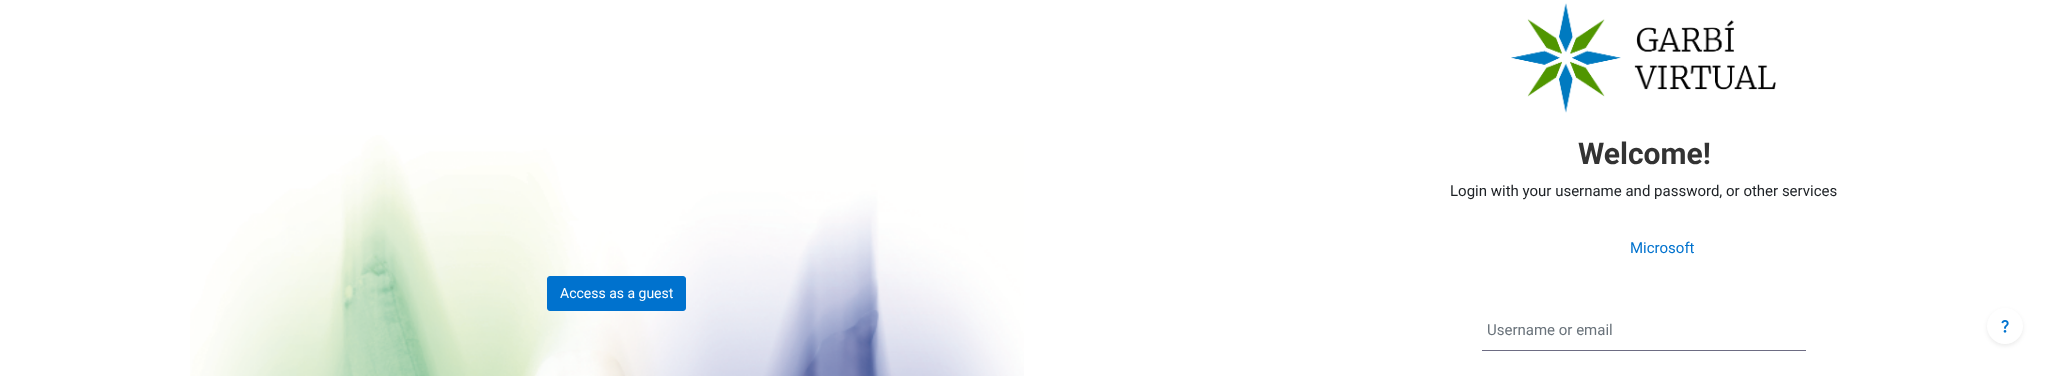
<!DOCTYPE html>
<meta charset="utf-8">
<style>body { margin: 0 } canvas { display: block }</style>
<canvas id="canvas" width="2055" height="376"></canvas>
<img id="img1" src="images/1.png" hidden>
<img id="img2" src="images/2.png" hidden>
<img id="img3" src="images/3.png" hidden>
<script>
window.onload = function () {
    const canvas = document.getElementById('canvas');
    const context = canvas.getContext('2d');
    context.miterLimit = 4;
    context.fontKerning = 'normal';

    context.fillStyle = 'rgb(255, 255, 255)';
    context.fillRect(0, 0, 2055, 376);
    context.drawImage(document.getElementById('img1'), 190, 135, 834, 241);
    context.fillStyle = 'rgb(0, 114, 206)';
    context.beginPath();
    context.roundRect(547.5, 276.5, 138, 34, 2.5);
    context.fill();
    context.strokeStyle = 'rgb(0, 114, 206)';
    context.stroke();
    context.drawImage(document.getElementById('img2'), 1511, 3, 265, 110);
    context.fillStyle = 'rgb(109, 108, 131)';
    context.fillRect(1482, 350, 324, 1);
    context.fillStyle = 'rgba(0, 0, 0, 0.08)';
    context.filter = 'blur(2px)';
    context.beginPath();
    context.roundRect(1987, 310, 36, 36, 18);
    context.fill();
    context.filter = 'none';
    context.fillStyle = 'rgb(255, 255, 255)';
    context.beginPath();
    context.arc(2005, 326, 18, 0, 2 * Math.PI);
    context.fill();
    context.drawImage(document.getElementById('img3'), 2001, 320, 8, 13);
    context.font = '14px Roboto';
    context.fillText('Access as a guest', 560, 298);
    context.font = 'bold 30px Roboto';
    context.fillStyle = 'rgb(51, 51, 51)';
    context.fillText('Welcome!', 1578, 164);
    context.font = '15px Roboto';
    context.fillStyle = 'rgb(29, 33, 37)';
    context.fillText('Login with your username and password, or other services', 1450, 196);
    context.fillStyle = 'rgb(0, 114, 206)';
    context.fillText('Microsoft', 1630, 253);
    context.fillStyle = 'rgb(106, 115, 123)';
    context.fillText('Username or email', 1487, 335);
};
</script>
